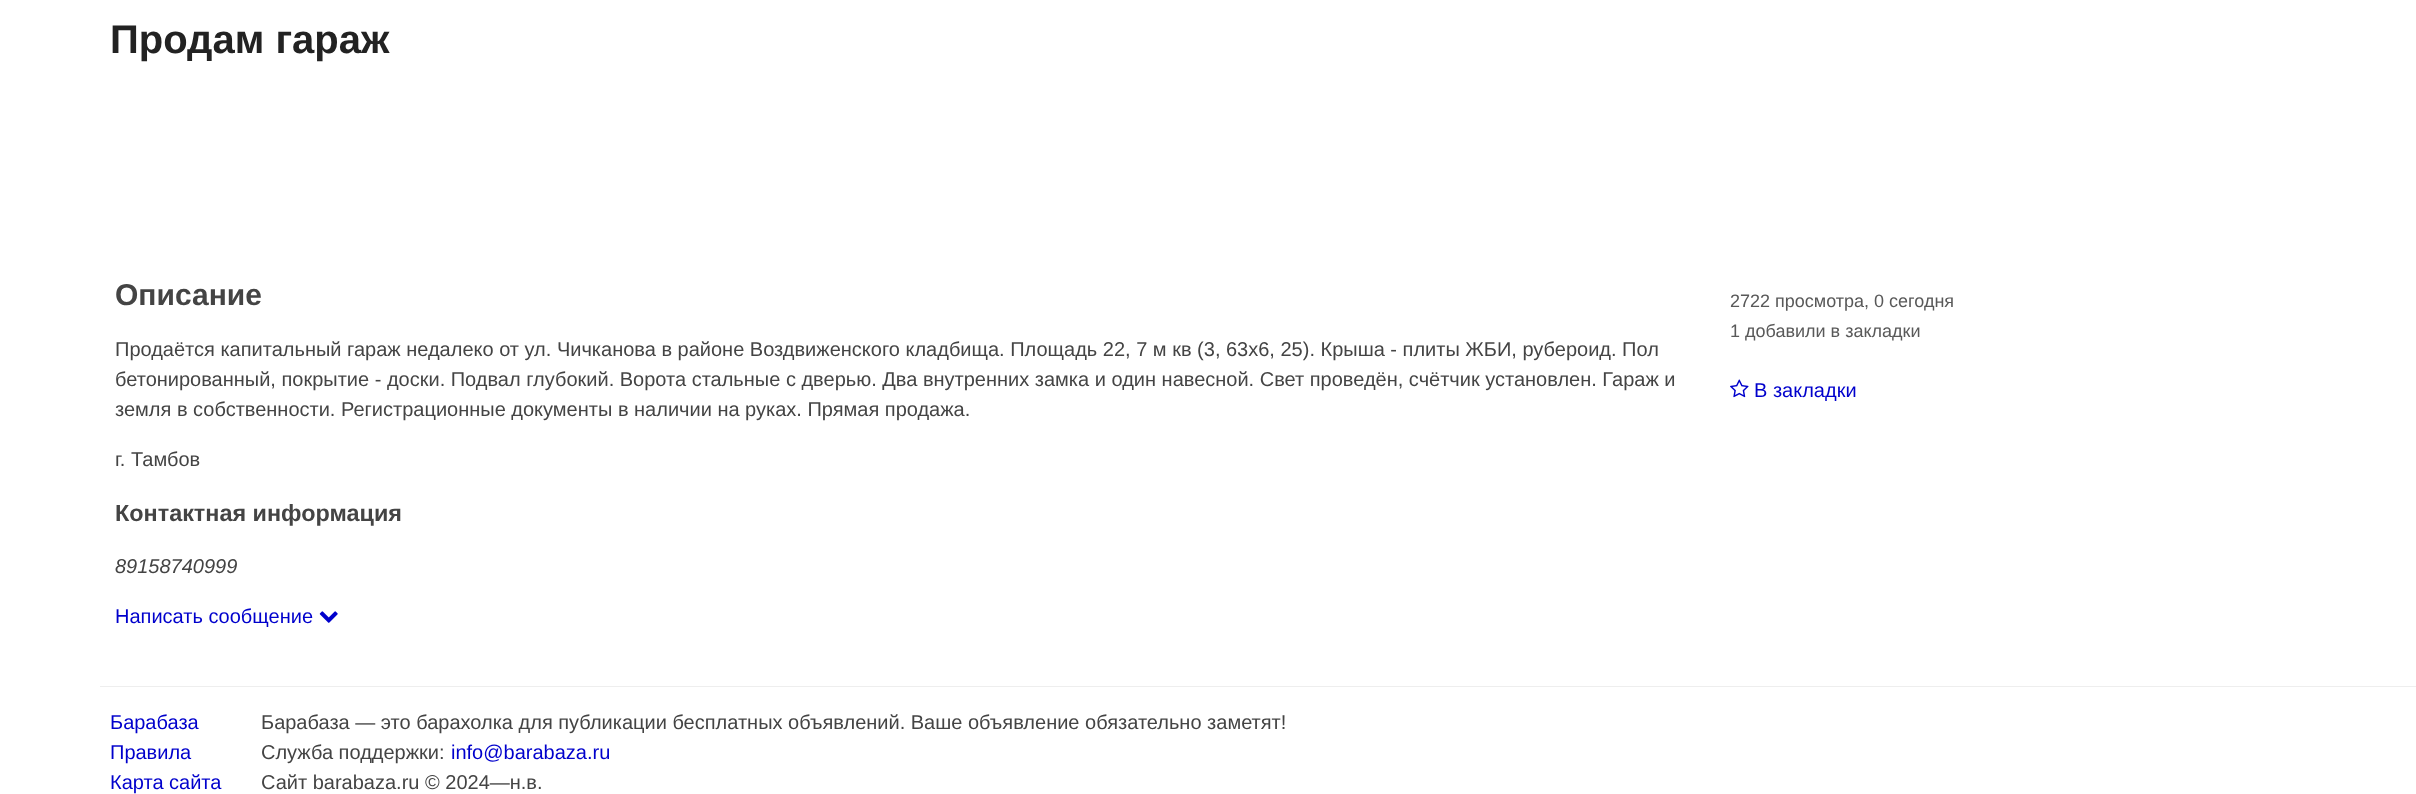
<!DOCTYPE html>
<meta charset="utf-8">
<style>body { margin: 0 } canvas { display: block }</style>
<canvas id="canvas" width="2416" height="794"></canvas>
<img id="img1" src="images/1.png" hidden>
<img id="img2" src="images/2.png" hidden>
<script>
window.onload = function () {
    const canvas = document.getElementById('canvas');
    const context = canvas.getContext('2d');
    context.miterLimit = 4;
    context.fontKerning = 'normal';

    context.fillStyle = 'rgb(255, 255, 255)';
    context.fillRect(0, 0, 2416, 794);
    context.drawImage(document.getElementById('img1'), 319, 611, 19, 12);
    context.drawImage(document.getElementById('img2'), 1730, 379, 19, 19);
    context.fillStyle = 'rgb(238, 238, 238)';
    context.fillRect(100, 686, 2316, 1);
    context.font = 'bold 40px Liberation Sans';
    context.fillStyle = 'rgb(34, 34, 34)';
    context.fillText('Продам гараж', 110, 53);
    context.font = 'bold 30px Liberation Sans';
    context.fillStyle = 'rgb(68, 68, 68)';
    context.fillText('Описание', 115, 305);
    context.font = '20px Liberation Sans';
    context.fillText('Продаётся капитальный гараж недалеко от ул. Чичканова в районе Воздвиженского кладбища. Площадь 22, 7 м кв (3, 63х6, 25). Крыша - плиты ЖБИ, рубероид. Пол', 115, 356);
    context.fillText('бетонированный, покрытие - доски. Подвал глубокий. Ворота стальные с дверью. Два внутренних замка и один навесной. Свет проведён, счётчик установлен. Гараж и', 115, 386);
    context.fillText('земля в собственности. Регистрационные документы в наличии на руках. Прямая продажа.', 115, 416);
    context.fillText('г. Тамбов', 115, 466);
    context.font = 'bold 23.4px Liberation Sans';
    context.fillText('Контактная информация', 115, 521);
    context.font = 'italic 20px Liberation Sans';
    context.fillText('89158740999', 115, 573);
    context.font = '20px Liberation Sans';
    context.fillStyle = 'rgb(0, 0, 204)';
    context.fillText('Написать сообщение', 115, 623);
    context.font = '18px Liberation Sans';
    context.fillStyle = 'rgb(89, 89, 89)';
    context.fillText('2722 просмотра, 0 сегодня', 1730, 307);
    context.fillText('1 добавили в закладки', 1730, 337);
    context.font = '20px Liberation Sans';
    context.fillStyle = 'rgb(0, 0, 204)';
    context.fillText('В закладки', 1754, 397);
    context.fillText('Барабаза', 110, 729);
    context.fillText('Правила', 110, 759);
    context.fillText('Карта сайта', 110, 789);
    context.fillStyle = 'rgb(68, 68, 68)';
    context.fillText('Барабаза — это барахолка для публикации бесплатных объявлений. Ваше объявление обязательно заметят!', 261, 729);
    context.fillText('Служба поддержки:', 261, 759);
    context.fillStyle = 'rgb(0, 0, 204)';
    context.fillText('info@barabaza.ru', 451, 759);
    context.fillStyle = 'rgb(68, 68, 68)';
    context.fillText('Сайт barabaza.ru © 2024—н.в.', 261, 789);
};
</script>
